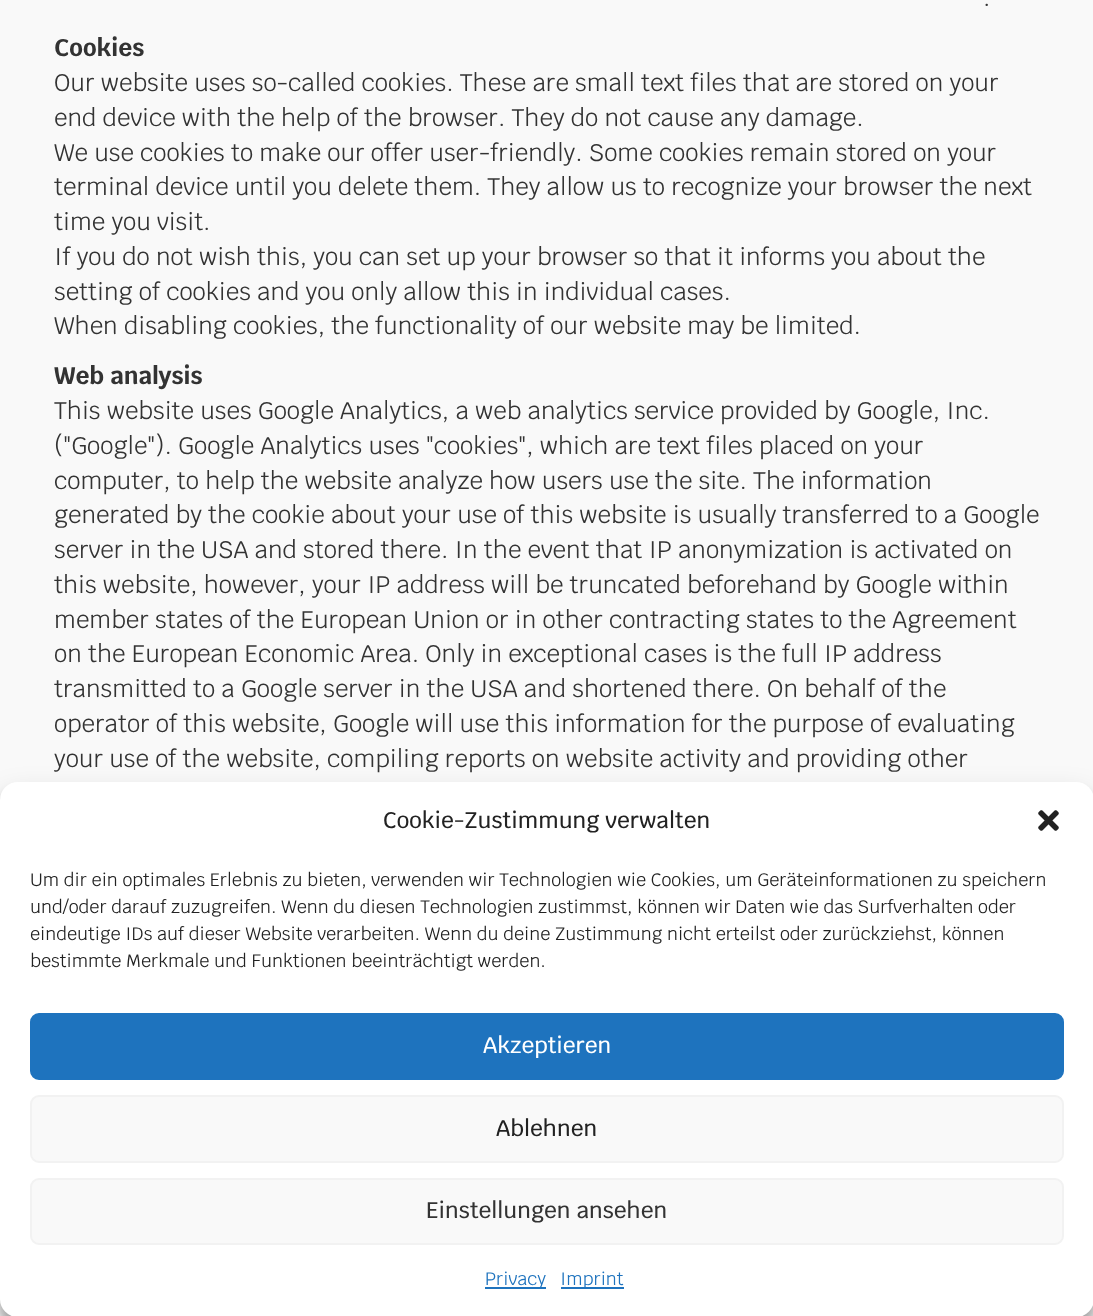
<!DOCTYPE html>
<meta charset="utf-8">
<style>body { margin: 0 } canvas { display: block }</style>
<canvas id="canvas" width="1093" height="1316"></canvas>
<img id="img1" src="images/1.png" hidden>
<script>
window.onload = function () {
    const canvas = document.getElementById('canvas');
    const context = canvas.getContext('2d');
    context.miterLimit = 4;
    context.fontKerning = 'normal';

    context.fillStyle = 'rgb(249, 249, 249)';
    context.fillRect(0, 0, 1093, 1316);
    context.fillStyle = 'rgba(0, 0, 0, 0.23)';
    context.filter = 'blur(4.5px)';
    context.beginPath();
    context.roundRect(0, 791, 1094, 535, 18);
    context.fill();
    context.filter = 'none';
    context.fillStyle = 'rgba(0, 0, 0, 0.19)';
    context.filter = 'blur(15px)';
    context.beginPath();
    context.roundRect(0, 797, 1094, 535, 18);
    context.fill();
    context.filter = 'none';
    context.fillStyle = 'rgb(255, 255, 255)';
    context.beginPath();
    context.roundRect(0, 782, 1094, 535, 18);
    context.fill();
    context.drawImage(document.getElementById('img1'), 1038, 810, 21, 21);
    context.fillStyle = 'rgb(30, 115, 190)';
    context.beginPath();
    context.roundRect(31, 1014, 1032, 65, 8);
    context.fill();
    context.strokeStyle = 'rgb(30, 115, 190)';
    context.lineWidth = 2;
    context.stroke();
    context.fillStyle = 'rgb(249, 249, 249)';
    context.beginPath();
    context.roundRect(31, 1096, 1032, 66, 8);
    context.fill();
    context.strokeStyle = 'rgb(242, 242, 242)';
    context.stroke();
    context.beginPath();
    context.roundRect(31, 1179, 1032, 65, 8);
    context.fill();
    context.stroke();
    context.fillStyle = 'rgb(30, 115, 190)';
    context.fillRect(485, 1287, 61, 2);
    context.fillRect(561, 1287, 63, 2);
    context.font = '24px Krub';
    context.fillStyle = 'rgb(51, 51, 51)';
    context.fillText('.', 983, 6);
    context.font = 'bold 24px Krub';
    context.fillText('Cookies', 54, 56);
    context.font = '24px Krub';
    context.fillText('Our website uses so-called cookies. These are small text files that are stored on your', 54, 91);
    context.fillText('end device with the help of the browser. They do not cause any damage.', 54, 126);
    context.fillText('We use cookies to make our offer user-friendly. Some cookies remain stored on your', 54, 161);
    context.fillText('terminal device until you delete them. They allow us to recognize your browser the next', 54, 195);
    context.fillText('time you visit.', 54, 230);
    context.fillText('If you do not wish this, you can set up your browser so that it informs you about the', 54, 265);
    context.fillText('setting of cookies and you only allow this in individual cases.', 54, 300);
    context.fillText('When disabling cookies, the functionality of our website may be limited.', 54, 334);
    context.font = 'bold 24px Krub';
    context.fillText('Web analysis', 54, 384);
    context.font = '24px Krub';
    context.fillText('This website uses Google Analytics, a web analytics service provided by Google, Inc.', 54, 419);
    context.fillText('("Google"). Google Analytics uses "cookies", which are text files placed on your', 54, 454);
    context.fillText('computer, to help the website analyze how users use the site. The information', 54, 489);
    context.fillText('generated by the cookie about your use of this website is usually transferred to a Google', 54, 523);
    context.fillText('server in the USA and stored there. In the event that IP anonymization is activated on', 54, 558);
    context.fillText('this website, however, your IP address will be truncated beforehand by Google within', 54, 593);
    context.fillText('member states of the European Union or in other contracting states to the Agreement', 54, 628);
    context.fillText('on the European Economic Area. Only in exceptional cases is the full IP address', 54, 662);
    context.fillText('transmitted to a Google server in the USA and shortened there. On behalf of the', 54, 697);
    context.fillText('operator of this website, Google will use this information for the purpose of evaluating', 54, 732);
    context.fillText('your use of the website, compiling reports on website activity and providing other', 54, 767);
    context.font = '500 22.5px Krub';
    context.fillStyle = 'rgb(34, 34, 34)';
    context.fillText('Cookie-Zustimmung verwalten', 383, 828);
    context.font = '18px Krub';
    context.fillText('Um dir ein optimales Erlebnis zu bieten, verwenden wir Technologien wie Cookies, um Geräteinformationen zu speichern', 30, 886);
    context.fillText('und/oder darauf zuzugreifen. Wenn du diesen Technologien zustimmst, können wir Daten wie das Surfverhalten oder', 30, 913);
    context.fillText('eindeutige IDs auf dieser Website verarbeiten. Wenn du deine Zustimmung nicht erteilst oder zurückziehst, können', 30, 940);
    context.fillText('bestimmte Merkmale und Funktionen beeinträchtigt werden.', 30, 967);
    context.font = '500 22.5px Krub';
    context.fillStyle = 'rgb(255, 255, 255)';
    context.fillText('Akzeptieren', 483, 1053);
    context.fillStyle = 'rgb(34, 34, 34)';
    context.fillText('Ablehnen', 496, 1136);
    context.fillStyle = 'rgb(51, 51, 51)';
    context.fillText('Einstellungen ansehen', 426, 1218);
    context.font = '18px Krub';
    context.fillStyle = 'rgb(30, 115, 190)';
    context.fillText('Privacy', 485, 1285);
    context.fillText('Imprint', 560, 1285);
};
</script>
